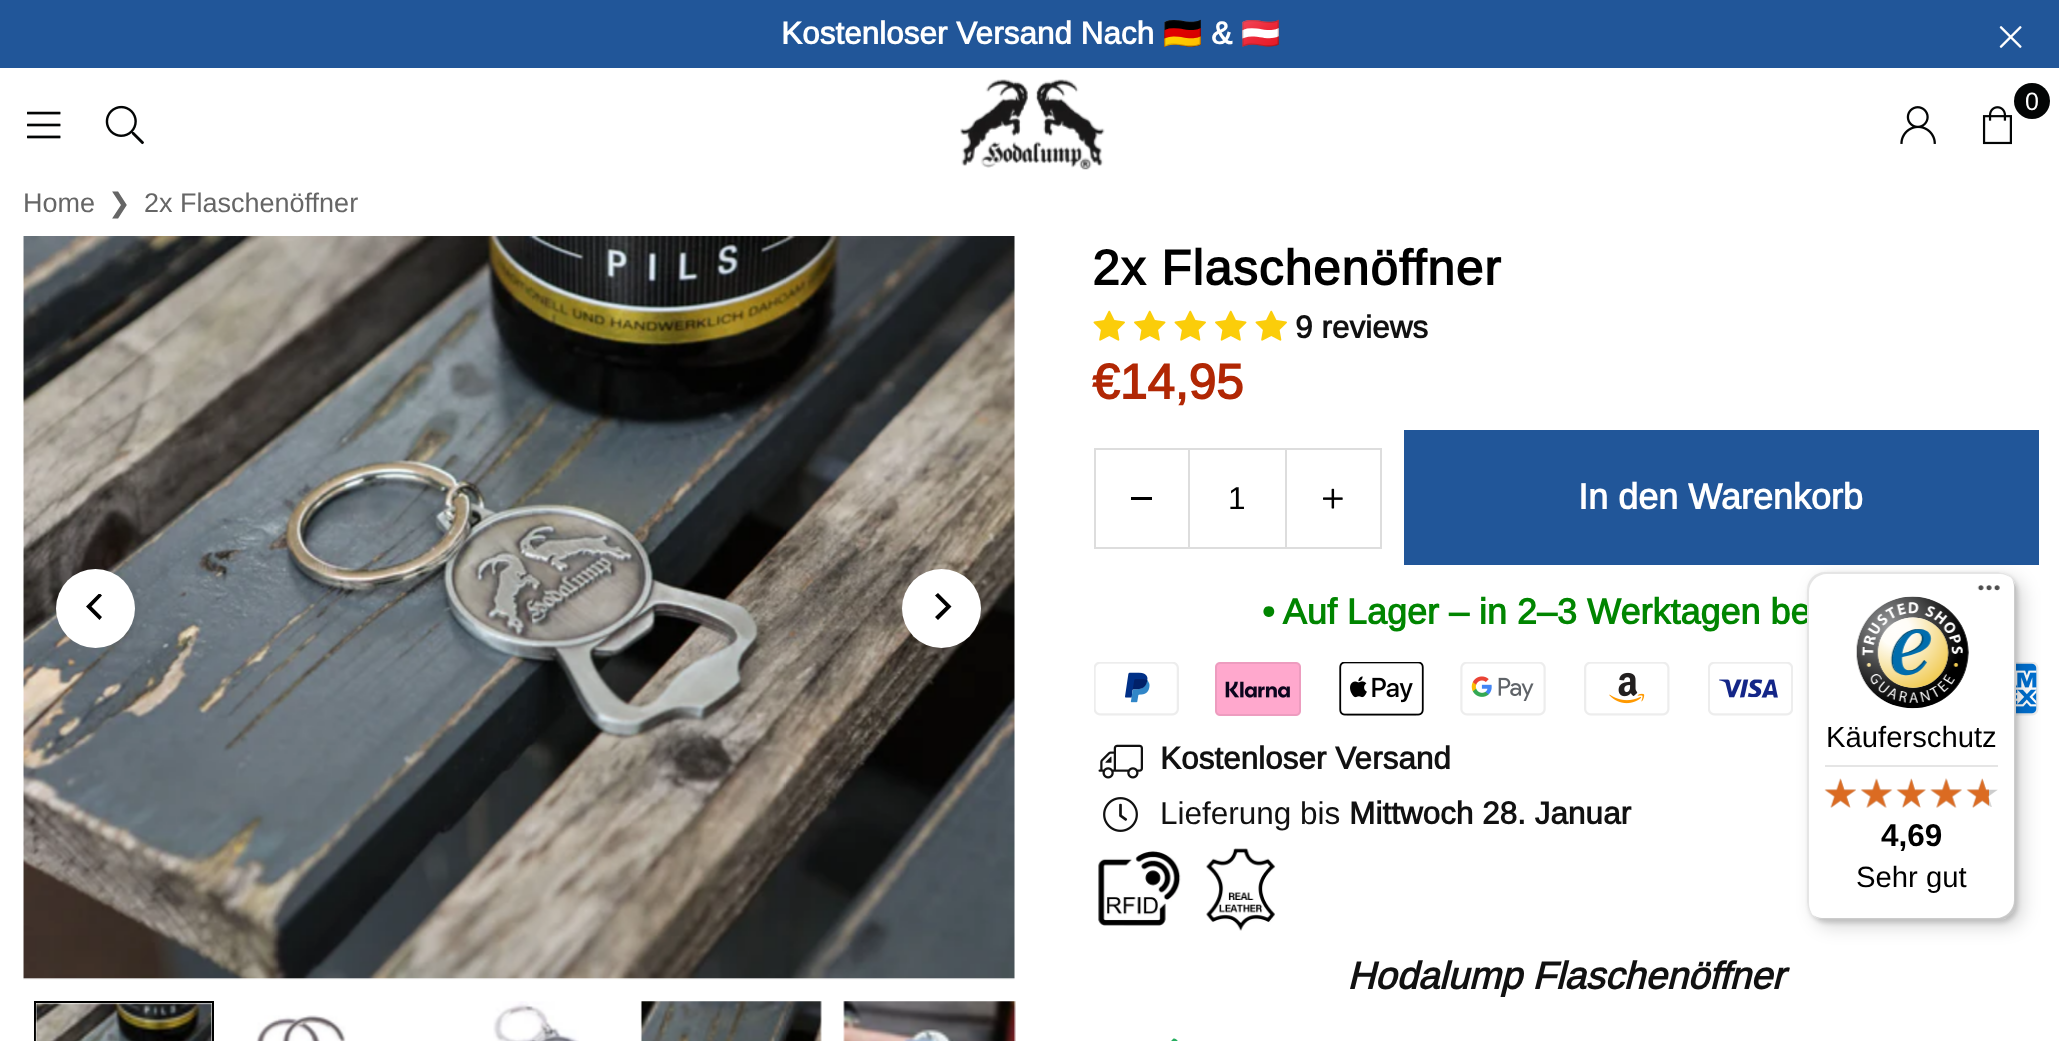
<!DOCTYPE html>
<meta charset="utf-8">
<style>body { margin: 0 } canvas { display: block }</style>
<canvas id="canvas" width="2059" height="1041"></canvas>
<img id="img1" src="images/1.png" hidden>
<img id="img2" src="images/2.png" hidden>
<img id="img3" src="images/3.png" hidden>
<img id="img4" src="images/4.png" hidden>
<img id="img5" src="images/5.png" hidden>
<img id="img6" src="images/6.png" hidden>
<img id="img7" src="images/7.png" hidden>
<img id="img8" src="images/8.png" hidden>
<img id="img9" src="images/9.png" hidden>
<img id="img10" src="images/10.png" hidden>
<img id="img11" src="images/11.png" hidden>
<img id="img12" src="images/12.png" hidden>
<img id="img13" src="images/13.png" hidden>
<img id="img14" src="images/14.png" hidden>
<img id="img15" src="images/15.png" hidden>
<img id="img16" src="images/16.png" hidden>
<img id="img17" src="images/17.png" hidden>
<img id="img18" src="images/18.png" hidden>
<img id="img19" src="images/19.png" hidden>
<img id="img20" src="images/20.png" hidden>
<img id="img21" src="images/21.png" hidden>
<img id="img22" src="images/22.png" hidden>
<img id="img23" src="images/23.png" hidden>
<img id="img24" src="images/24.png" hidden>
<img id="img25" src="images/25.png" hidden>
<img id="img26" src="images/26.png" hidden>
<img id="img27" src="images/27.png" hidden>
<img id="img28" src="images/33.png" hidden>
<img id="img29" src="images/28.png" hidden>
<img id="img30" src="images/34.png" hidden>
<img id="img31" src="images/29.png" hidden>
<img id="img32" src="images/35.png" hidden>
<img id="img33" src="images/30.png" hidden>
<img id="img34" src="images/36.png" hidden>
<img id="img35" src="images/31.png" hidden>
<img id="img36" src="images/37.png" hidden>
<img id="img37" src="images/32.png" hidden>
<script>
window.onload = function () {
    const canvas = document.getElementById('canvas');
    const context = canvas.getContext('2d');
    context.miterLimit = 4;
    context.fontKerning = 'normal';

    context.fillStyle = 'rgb(255, 255, 255)';
    context.fillRect(0, 0, 2059, 1041);
    context.fillStyle = 'rgb(33, 86, 153)';
    context.fillRect(0, 0, 2059, 68);
    context.drawImage(document.getElementById('img1'), 1999, 26, 23, 22);
    context.drawImage(document.getElementById('img2'), 960, 79, 145, 91);
    context.fillStyle = 'rgb(3, 5, 5)';
    context.beginPath();
    context.arc(2032, 101, 18, 0, 2 * Math.PI);
    context.fill();
    context.drawImage(document.getElementById('img3'), 1982, 106, 30, 39);
    context.drawImage(document.getElementById('img4'), 1900, 106, 36, 38);
    context.drawImage(document.getElementById('img5'), 27, 111, 34, 28);
    context.drawImage(document.getElementById('img6'), 105, 105, 39, 40);
    context.drawImage(document.getElementById('img7'), 23, 236, 992, 744);
    context.fillStyle = 'rgba(255, 255, 255, 0.52)';
    context.fillRect(23, 236, 1, 743);
    context.fillStyle = 'rgb(255, 255, 255)';
    context.beginPath();
    context.arc(95.5, 608.5, 39.5, 0, 2 * Math.PI);
    context.fill();
    context.save();
    context.beginPath();
    context.rect(83, 594, 27, 27);
    context.clip();
    context.fillStyle = 'rgb(0, 0, 0)';
    context.beginPath();
    context.moveTo(86, 606.5);
    context.lineTo(99.5, 620);
    context.lineTo(102, 617);
    context.lineTo(91.5, 606.5);
    context.lineTo(102, 595.5);
    context.lineTo(99.5, 593);
    context.closePath();
    context.fill();
    context.restore();
    context.beginPath();
    context.arc(941.5, 608.5, 39.5, 0, 2 * Math.PI);
    context.fill();
    context.fillStyle = 'rgb(0, 0, 0)';
    context.beginPath();
    context.moveTo(951.5, 606.5);
    context.lineTo(938, 593);
    context.lineTo(935, 595.5);
    context.lineTo(946, 606.5);
    context.lineTo(935, 617);
    context.lineTo(938, 620);
    context.closePath();
    context.fill();
    context.strokeStyle = 'rgb(0, 0, 0)';
    context.lineWidth = 2;
    context.strokeRect(35, 1002, 178, 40);
    context.drawImage(document.getElementById('img8'), 35, 1003, 177, 38);
    context.drawImage(document.getElementById('img9'), 256, 1015, 90, 26);
    context.drawImage(document.getElementById('img10'), 493, 1001, 86, 40);
    context.drawImage(document.getElementById('img11'), 640, 1001, 182, 40);
    context.drawImage(document.getElementById('img12'), 843, 1001, 173, 40);
    context.drawImage(document.getElementById('img13'), 1093, 310, 32, 31);
    context.drawImage(document.getElementById('img14'), 1134, 310, 32, 31);
    context.drawImage(document.getElementById('img13'), 1174, 310, 32, 31);
    context.drawImage(document.getElementById('img14'), 1215, 310, 32, 31);
    context.drawImage(document.getElementById('img13'), 1255, 310, 32, 31);
    context.strokeStyle = 'rgb(221, 221, 221)';
    context.strokeRect(1095, 449, 286, 99);
    context.fillStyle = 'rgb(221, 221, 221)';
    context.fillRect(1188, 450, 2, 97);
    context.fillStyle = 'rgb(0, 0, 0)';
    context.fillRect(1131, 497, 21, 3);
    context.fillStyle = 'rgb(221, 221, 221)';
    context.fillRect(1285, 450, 2, 97);
    context.drawImage(document.getElementById('img15'), 1323, 488, 20, 21);
    context.fillStyle = 'rgb(33, 86, 153)';
    context.fillRect(1404, 430, 635, 135);
    context.drawImage(document.getElementById('img16'), 1094, 662, 85, 54);
    context.drawImage(document.getElementById('img17'), 1215, 662, 86, 54);
    context.drawImage(document.getElementById('img18'), 1339, 662, 85, 54);
    context.drawImage(document.getElementById('img19'), 1460, 662, 86, 54);
    context.drawImage(document.getElementById('img20'), 1584, 662, 86, 54);
    context.drawImage(document.getElementById('img21'), 1708, 662, 85, 54);
    context.drawImage(document.getElementById('img22'), 2016, 662, 23, 54);
    context.drawImage(document.getElementById('img23'), 1098, 744, 45, 35);
    context.drawImage(document.getElementById('img24'), 1103, 797, 35, 35);
    context.drawImage(document.getElementById('img25'), 1098, 848, 178, 83);
    context.fillStyle = 'rgb(39, 174, 96)';
    context.beginPath();
    context.moveTo(1173, 1039);
    context.lineTo(1139, 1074);
    context.lineTo(1126, 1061);
    context.bezierCurveTo(1124, 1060, 1123, 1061, 1123, 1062);
    context.bezierCurveTo(1117, 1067, 1120, 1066, 1126, 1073);
    context.bezierCurveTo(1143, 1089, 1135, 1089, 1153, 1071);
    context.lineTo(1173, 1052);
    context.bezierCurveTo(1175, 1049, 1182, 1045, 1179, 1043);
    context.bezierCurveTo(1179, 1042, 1175, 1037, 1173, 1039);
    context.closePath();
    context.fill();
    context.fillStyle = 'rgba(0, 0, 0, 0.15)';
    context.filter = 'blur(9px)';
    context.beginPath();
    context.roundRect(1814, 578, 209, 349, 18);
    context.fill();
    context.filter = 'none';
    context.filter = 'blur(2px)';
    context.beginPath();
    context.roundRect(1809, 574, 209, 349, 18);
    context.fill();
    context.filter = 'none';
    context.font = 'bold 31.5px Arimo';
    context.fillStyle = 'rgb(255, 255, 255)';
    context.fillText('Kostenloser Versand Nach', 781, 44);
    context.font = 'bold 31.5px Noto Color Emoji';
    context.fillText('🇩🇪', 1163, 44);
    context.font = 'bold 31.5px Arimo';
    context.fillText('&', 1211, 44);
    context.font = 'bold 31.5px Noto Color Emoji';
    context.fillText('🇦🇹', 1241, 44);
    context.font = '25px Arimo';
    context.fillText('0', 2025, 110);
    context.font = '27px Arimo';
    context.fillStyle = 'rgb(102, 102, 102)';
    context.fillText('Home', 23, 212);
    context.font = '27px DejaVu Sans';
    context.fillText('❯', 108, 212);
    context.font = '27px Arimo';
    context.fillText('2x Flaschenöffner', 144, 212);
    context.letterSpacing = '1px';
    context.font = 'bold 49.5px Arimo';
    context.fillStyle = 'rgb(0, 0, 0)';
    context.fillText('2x Flaschenöffner', 1092, 285);
    context.letterSpacing = '0px';
    context.font = 'bold 31.5px Arimo';
    context.fillStyle = 'rgb(17, 17, 17)';
    context.fillText('9 reviews', 1295, 338);
    context.font = 'bold 49.5px Arimo';
    context.fillStyle = 'rgb(177, 39, 4)';
    context.fillText('€14,95', 1092, 399);
    context.font = '31.5px Arimo';
    context.fillStyle = 'rgb(0, 0, 0)';
    context.fillText('1', 1228, 509);
    context.font = 'bold 36px Arimo';
    context.fillStyle = 'rgb(255, 255, 255)';
    context.fillText('In den Warenkorb', 1578, 509);
    context.fillStyle = 'rgb(0, 133, 0)';
    context.fillText('• Auf Lager – in 2–3 Werktagen be', 1262, 624);
    context.font = 'bold 31.5px Arimo';
    context.fillStyle = 'rgb(17, 17, 17)';
    context.fillText('Kostenloser Versand', 1160, 769);
    context.font = '31.5px Arimo';
    context.fillText('Lieferung bis', 1160, 824);
    context.font = 'bold 31.5px Arimo';
    context.fillText('Mittwoch 28. Januar', 1349, 824);
    context.font = 'italic bold 38.25px Arimo';
    context.fillText('Hodalump Flaschenöffner', 1347, 989);
    context.fillStyle = 'rgb(255, 255, 255)';
    context.beginPath();
    context.roundRect(1807, 572, 209, 348, 18);
    context.fill();
    context.fillStyle = 'rgb(229, 229, 229)';
    context.beginPath();
    context.moveTo(1827, 574);
    context.lineTo(2000, 574);
    context.bezierCurveTo(2004, 574, 2008, 576, 2012, 578);
    context.bezierCurveTo(2008, 574, 2003, 572, 1998, 572);
    context.lineTo(1825, 572);
    context.bezierCurveTo(1815, 572, 1807, 580, 1807, 590);
    context.lineTo(1807, 902);
    context.bezierCurveTo(1807, 907, 1809, 912, 1813, 916);
    context.bezierCurveTo(1811, 912, 1809, 908, 1809, 904);
    context.lineTo(1809, 592);
    context.bezierCurveTo(1809, 582, 1817, 574, 1827, 574);
    context.closePath();
    context.fill();
    context.fillStyle = 'rgba(0, 0, 0, 0.2)';
    context.beginPath();
    context.moveTo(1813, 915);
    context.bezierCurveTo(1816, 918, 1820, 920, 1825, 920);
    context.lineTo(1998, 920);
    context.bezierCurveTo(2008, 920, 2016, 912, 2016, 902);
    context.lineTo(2016, 590);
    context.bezierCurveTo(2016, 586, 2014, 582, 2012, 579);
    context.bezierCurveTo(2013, 581, 2014, 584, 2014, 587);
    context.lineTo(2014, 900);
    context.bezierCurveTo(2014, 910, 2006, 918, 1996, 918);
    context.lineTo(1822, 918);
    context.bezierCurveTo(1819, 918, 1816, 917, 1813, 915);
    context.closePath();
    context.fill();
    context.fillStyle = 'rgba(50, 50, 50, 0.2)';
    context.beginPath();
    context.moveTo(1816, 918);
    context.bezierCurveTo(1819, 919, 1822, 920, 1825, 920);
    context.lineTo(1998, 920);
    context.bezierCurveTo(2008, 920, 2016, 912, 2016, 902);
    context.lineTo(2016, 590);
    context.bezierCurveTo(2016, 587, 2015, 584, 2014, 581);
    context.bezierCurveTo(2015, 583, 2015, 586, 2015, 588);
    context.lineTo(2015, 901);
    context.bezierCurveTo(2015, 911, 2007, 919, 1997, 919);
    context.lineTo(1823, 919);
    context.bezierCurveTo(1821, 919, 1818, 919, 1816, 918);
    context.closePath();
    context.fill();
    context.fillStyle = 'rgba(255, 255, 255, 0.3)';
    context.beginPath();
    context.moveTo(1812, 915);
    context.bezierCurveTo(1815, 918, 1820, 920, 1825, 920);
    context.lineTo(1998, 920);
    context.bezierCurveTo(2008, 920, 2016, 912, 2016, 902);
    context.lineTo(2016, 590);
    context.bezierCurveTo(2016, 587, 2015, 584, 2014, 581);
    context.bezierCurveTo(2015, 583, 2015, 586, 2015, 588);
    context.lineTo(2015, 901);
    context.bezierCurveTo(2015, 911, 2007, 919, 1997, 919);
    context.lineTo(1824, 919);
    context.bezierCurveTo(1819, 919, 1815, 917, 1812, 915);
    context.closePath();
    context.fill();
    context.drawImage(document.getElementById('img26'), 1977, 585, 23, 6);
    context.drawImage(document.getElementById('img27'), 1856, 596, 113, 113);
    context.font = '29.25px Liberation Sans';
    context.fillStyle = 'rgb(0, 0, 0)';
    context.fillText('Käuferschutz', 1826, 747);
    context.fillStyle = 'rgb(229, 229, 229)';
    context.fillRect(1825, 765, 173, 2);
    context.drawImage(document.getElementById('img28'), 1825, 779, 31, 29);
    context.drawImage(document.getElementById('img29'), 1824, 778, 32, 30);
    context.drawImage(document.getElementById('img30'), 1861, 779, 31, 29);
    context.drawImage(document.getElementById('img31'), 1860, 778, 33, 30);
    context.drawImage(document.getElementById('img32'), 1897, 779, 29, 28);
    context.drawImage(document.getElementById('img33'), 1896, 778, 30, 30);
    context.drawImage(document.getElementById('img34'), 1930, 778, 32, 30);
    context.drawImage(document.getElementById('img35'), 1930, 778, 32, 30);
    context.drawImage(document.getElementById('img36'), 1967, 779, 31, 28);
    context.drawImage(document.getElementById('img37'), 1966, 778, 23, 30);
    context.font = 'bold 31.5px Liberation Sans';
    context.fillStyle = 'rgb(0, 0, 0)';
    context.fillText('4,69', 1881, 846);
    context.font = '29.25px Liberation Sans';
    context.fillText('Sehr gut', 1856, 887);
};
</script>
